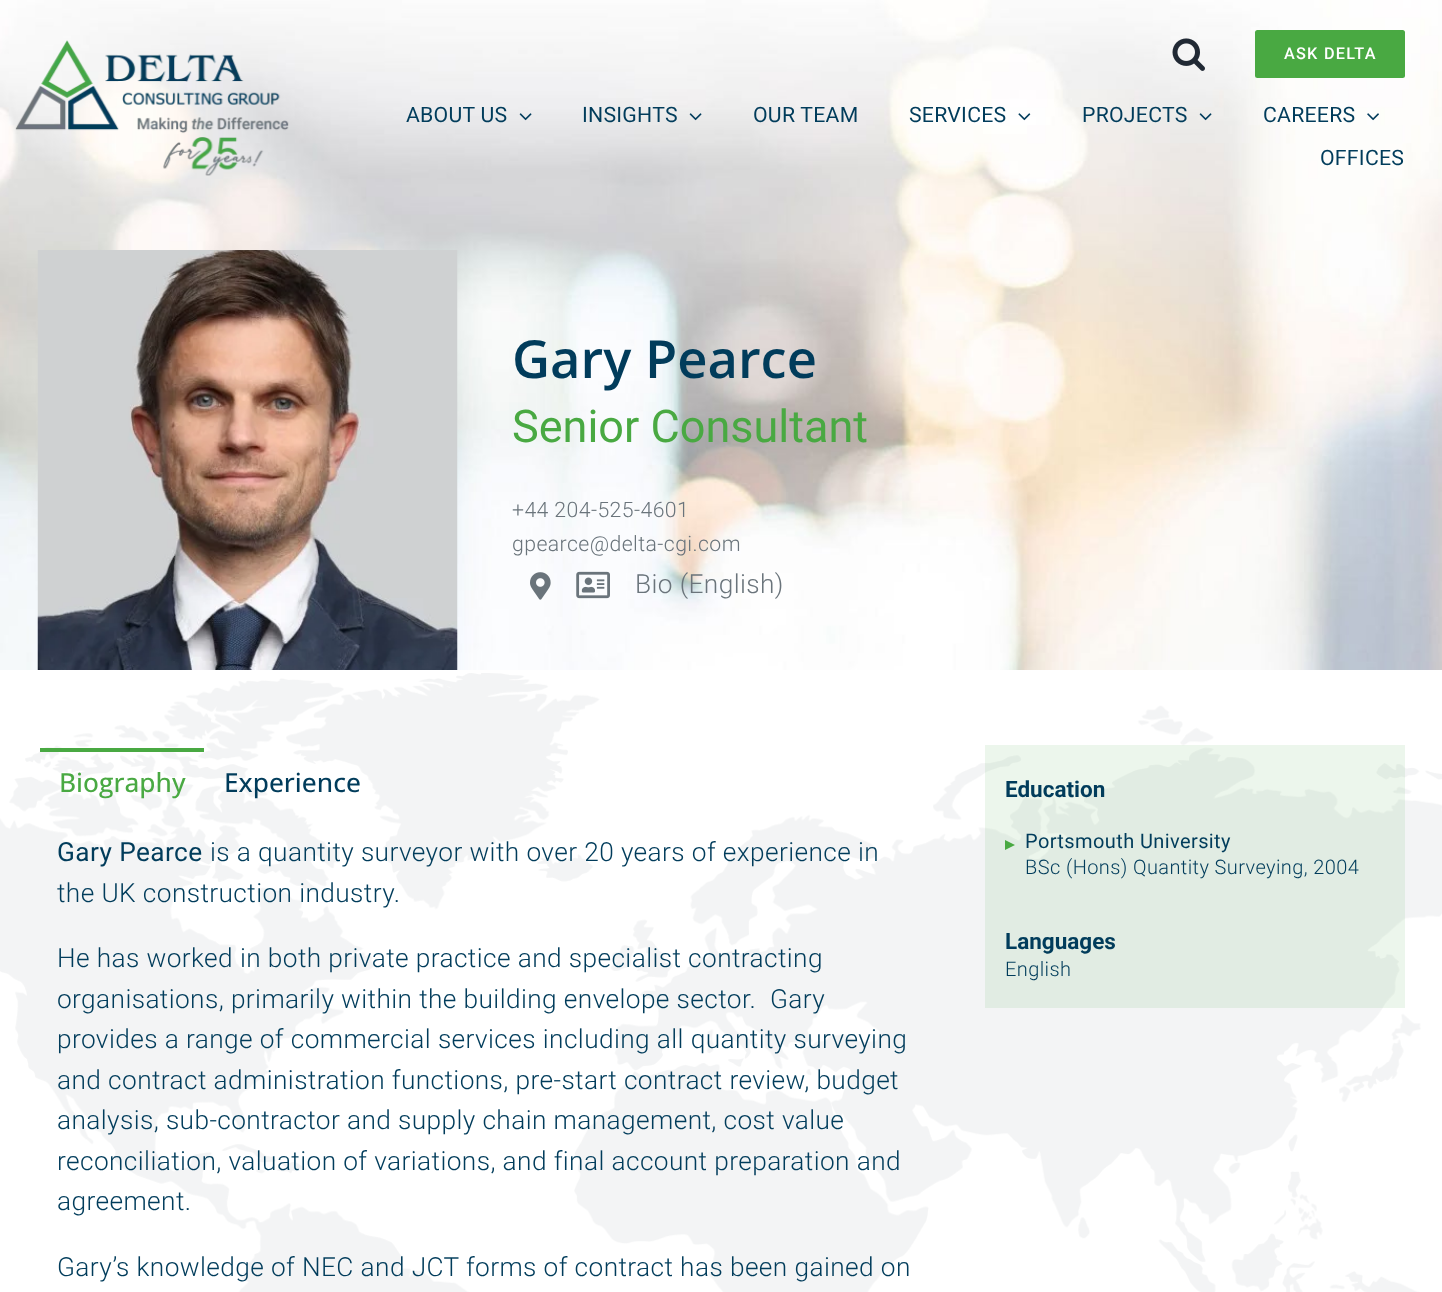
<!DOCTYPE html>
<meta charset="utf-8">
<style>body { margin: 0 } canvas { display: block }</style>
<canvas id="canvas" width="1442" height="1292"></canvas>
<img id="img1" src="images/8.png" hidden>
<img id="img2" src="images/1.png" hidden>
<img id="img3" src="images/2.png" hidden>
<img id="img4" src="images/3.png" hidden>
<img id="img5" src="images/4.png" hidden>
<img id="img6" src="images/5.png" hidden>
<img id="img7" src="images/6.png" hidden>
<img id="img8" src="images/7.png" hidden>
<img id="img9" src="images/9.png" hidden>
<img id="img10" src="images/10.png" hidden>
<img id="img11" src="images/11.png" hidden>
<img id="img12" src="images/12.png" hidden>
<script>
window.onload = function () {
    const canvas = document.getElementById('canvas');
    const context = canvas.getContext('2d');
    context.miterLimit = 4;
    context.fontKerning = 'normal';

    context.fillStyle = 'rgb(255, 255, 255)';
    context.fillRect(0, 0, 1442, 1292);
    context.drawImage(document.getElementById('img1'), 0, 0, 1442, 670);
    context.drawImage(document.getElementById('img2'), 15, 40, 274, 136);
    context.drawImage(document.getElementById('img3'), 1172, 38, 33, 33);
    context.fillStyle = 'rgb(73, 169, 66)';
    context.beginPath();
    context.roundRect(1255, 30, 150, 48, 2.5);
    context.fill();
    context.drawImage(document.getElementById('img4'), 519, 113, 13, 8);
    context.drawImage(document.getElementById('img5'), 689, 113, 13, 8);
    context.drawImage(document.getElementById('img6'), 1018, 113, 13, 8);
    context.drawImage(document.getElementById('img7'), 1199, 113, 13, 8);
    context.drawImage(document.getElementById('img8'), 1367, 113, 12, 8);
    context.drawImage(document.getElementById('img9'), 37, 250, 421, 420);
    context.drawImage(document.getElementById('img10'), 530, 572, 21, 28);
    context.drawImage(document.getElementById('img11'), 576, 571, 34, 28);
    context.drawImage(document.getElementById('img12'), 0, 673, 1442, 619);
    context.fillRect(40, 748, 164, 4);
    context.fillStyle = 'rgba(73, 169, 66, 0.1)';
    context.fillRect(985, 745, 420, 263);
    context.fillStyle = 'rgb(73, 169, 66)';
    context.beginPath();
    context.moveTo(1005, 850);
    context.lineTo(1005, 840);
    context.lineTo(1015, 845);
    context.closePath();
    context.fill();
    context.letterSpacing = '1.25px';
    context.font = '500 16.25px Roboto';
    context.fillStyle = 'rgb(255, 255, 255)';
    context.fillText('ASK DELTA', 1284, 59);
    context.letterSpacing = '0.25px';
    context.font = '21.25px Roboto';
    context.fillStyle = 'rgb(1, 60, 91)';
    context.fillText('ABOUT US', 406, 122);
    context.fillText('INSIGHTS', 582, 122);
    context.fillText('OUR TEAM', 753, 122);
    context.fillText('SERVICES', 909, 122);
    context.fillText('PROJECTS', 1082, 122);
    context.fillText('CAREERS', 1263, 122);
    context.fillText('OFFICES', 1320, 165);
    context.letterSpacing = '0px';
    context.font = '600 52.5px Open Sans';
    context.fillText('Gary Pearce', 512, 378);
    context.font = '45px Roboto';
    context.fillStyle = 'rgb(73, 169, 66)';
    context.fillText('Senior Consultant', 512, 442);
    context.letterSpacing = '0.4px';
    context.font = '300 21.25px Roboto';
    context.fillStyle = 'rgb(106, 116, 123)';
    context.fillText('+44 204-525-4601', 512, 517);
    context.fillText('gpearce@delta-cgi.com', 512, 551);
    context.font = '300 26.25px Roboto';
    context.fillText('Bio (English)', 635, 593);
    context.letterSpacing = '0px';
    context.font = '500 26.25px Open Sans';
    context.fillStyle = 'rgb(73, 169, 66)';
    context.fillText('Biography', 59, 792);
    context.fillStyle = 'rgb(1, 60, 91)';
    context.fillText('Experience', 224, 792);
    context.letterSpacing = '0.4px';
    context.font = '26.25px Roboto';
    context.fillText('Gary Pearce', 57, 861);
    context.font = '300 26.25px Roboto';
    context.fillText('is a quantity surveyor with over 20 years of experience in', 210, 861);
    context.fillText('the UK construction industry.', 57, 902);
    context.fillText('He has worked in both private practice and specialist contracting', 57, 967);
    context.fillText('organisations, primarily within the building envelope sector.  Gary', 57, 1008);
    context.fillText('provides a range of commercial services including all quantity surveying', 57, 1048);
    context.fillText('and contract administration functions, pre-start contract review, budget', 57, 1089);
    context.fillText('analysis, sub-contractor and supply chain management, cost value', 57, 1129);
    context.fillText('reconciliation, valuation of variations, and final account preparation and', 57, 1170);
    context.fillText('agreement.', 57, 1210);
    context.fillText('Gary’s knowledge of NEC and JCT forms of contract has been gained on', 57, 1276);
    context.letterSpacing = '0px';
    context.font = 'bold 22.5px Roboto';
    context.fillText('Education', 1005, 797);
    context.letterSpacing = '0.4px';
    context.font = '20px Roboto';
    context.fillText('Portsmouth University', 1025, 848);
    context.font = '300 20px Roboto';
    context.fillText('BSc (Hons) Quantity Surveying, 2004', 1025, 874);
    context.letterSpacing = '0px';
    context.font = 'bold 22.5px Roboto';
    context.fillText('Languages', 1005, 949);
    context.letterSpacing = '0.4px';
    context.font = '300 20px Roboto';
    context.fillText('English', 1005, 976);
};
</script>
